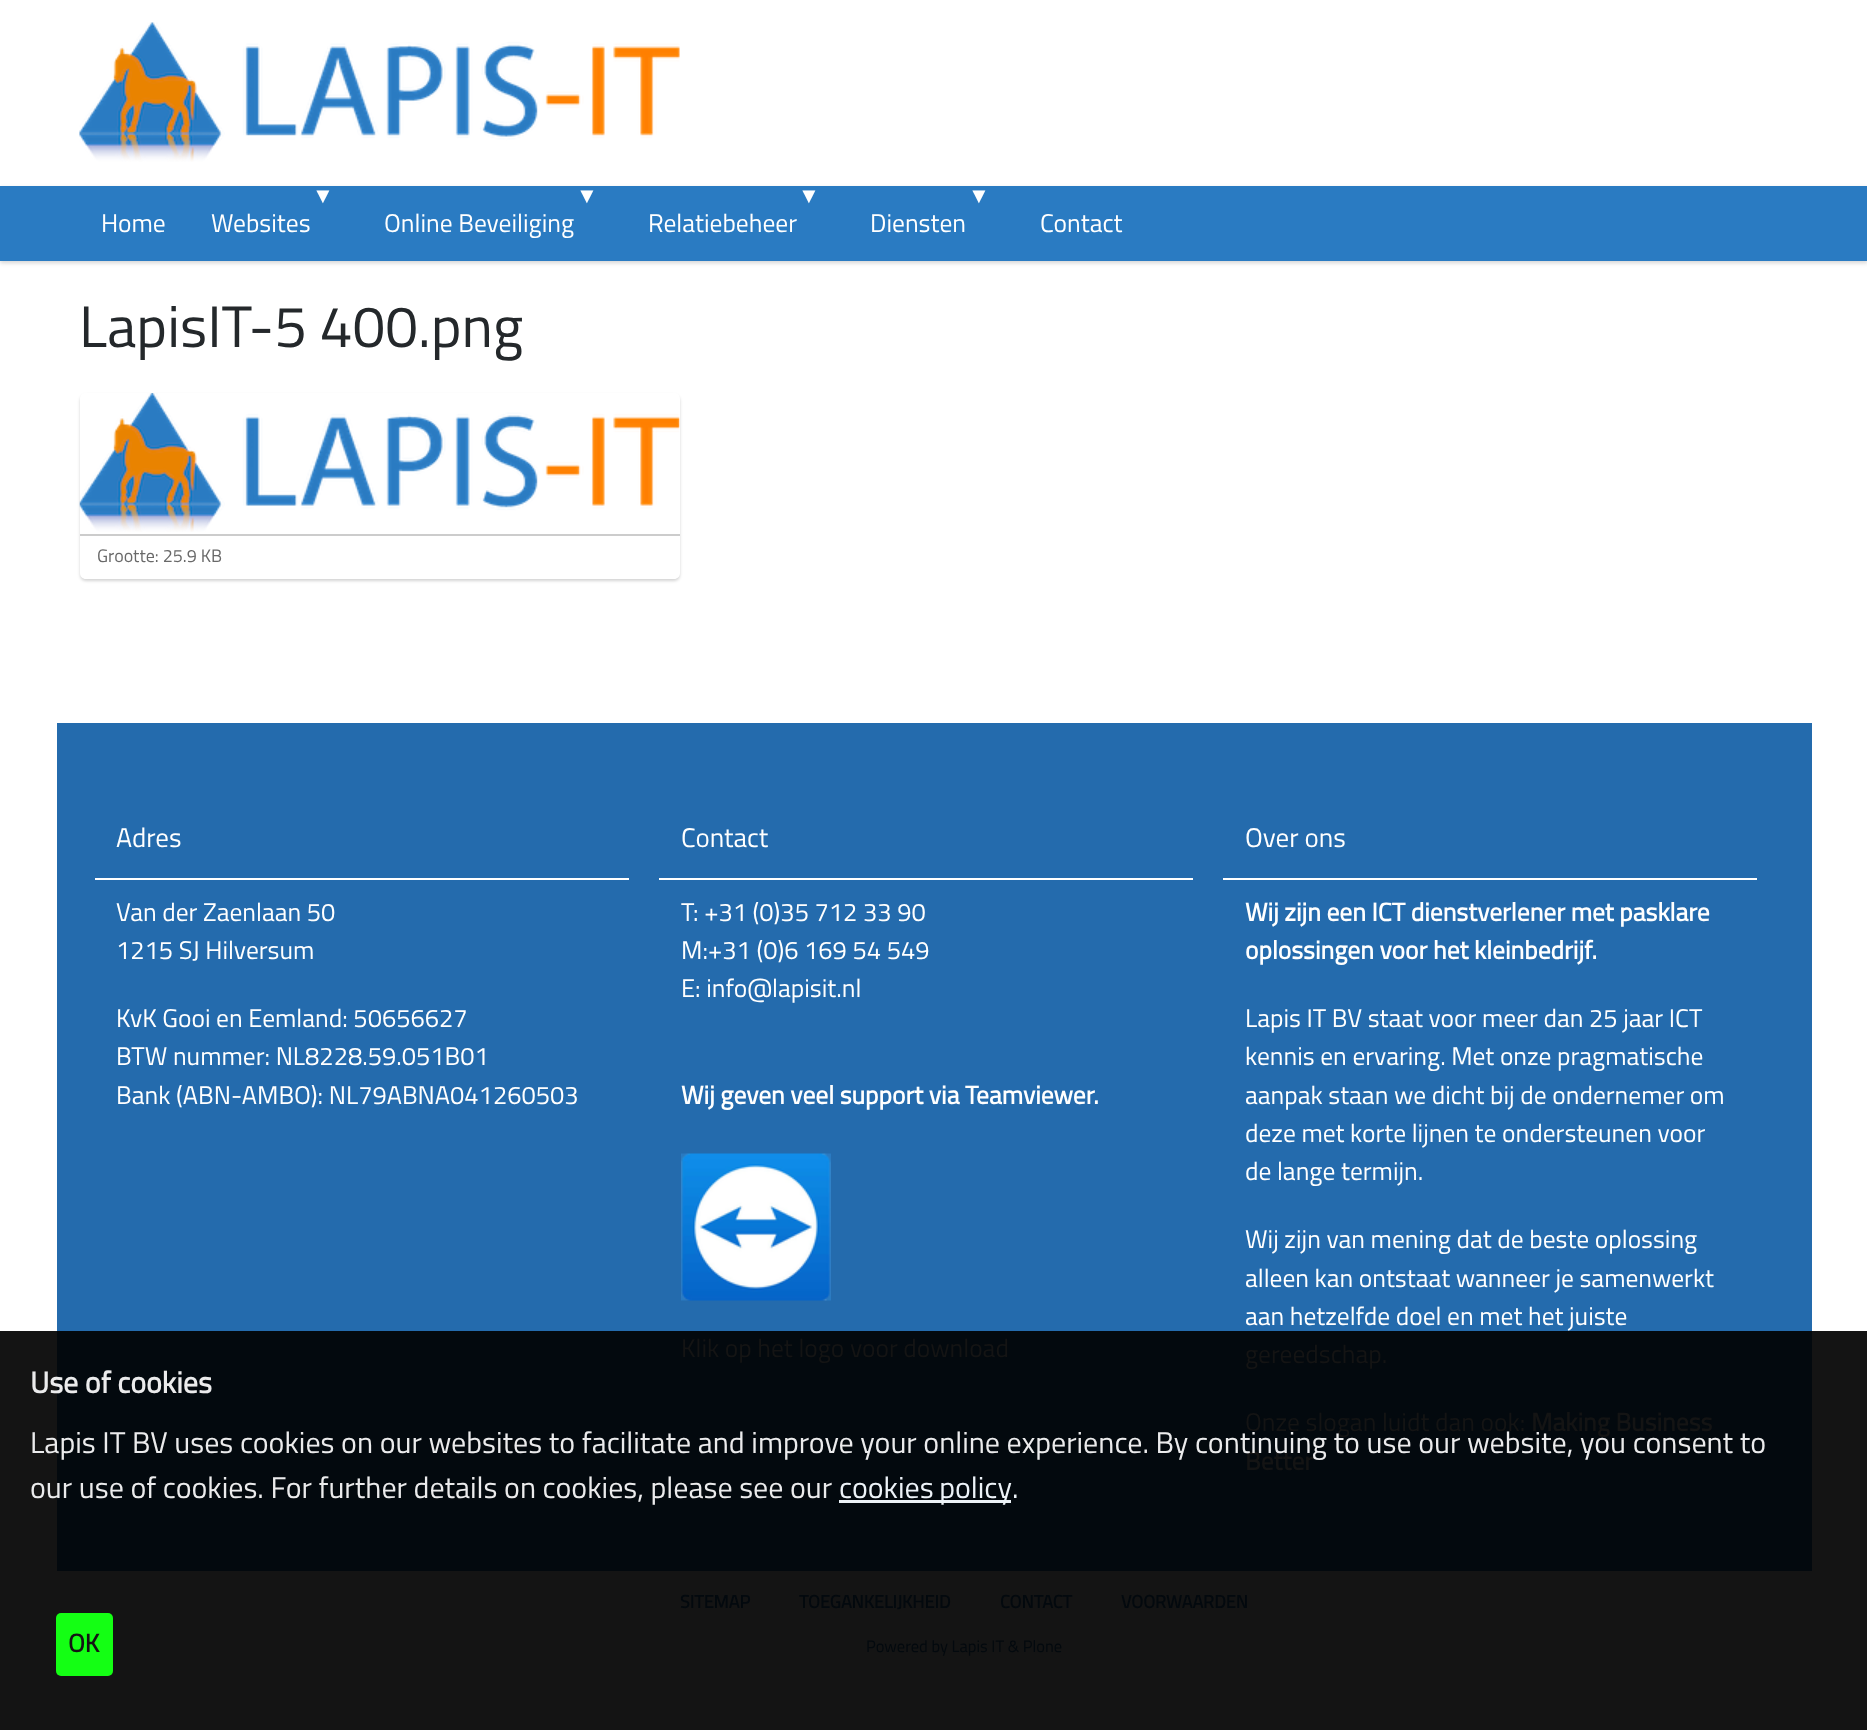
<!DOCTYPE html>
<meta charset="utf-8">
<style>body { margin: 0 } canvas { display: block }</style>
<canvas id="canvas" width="1867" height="1730"></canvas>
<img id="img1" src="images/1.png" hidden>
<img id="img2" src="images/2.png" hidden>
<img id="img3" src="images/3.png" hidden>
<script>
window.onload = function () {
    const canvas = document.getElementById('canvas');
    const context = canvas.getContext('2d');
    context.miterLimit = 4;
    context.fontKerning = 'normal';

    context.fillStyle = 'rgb(255, 255, 255)';
    context.fillRect(0, 0, 1867, 1730);
    context.fillStyle = 'rgb(20, 20, 20)';
    context.fillRect(0, 1331, 1867, 399);
    context.drawImage(document.getElementById('img1'), 79, 22, 601, 140);
    context.fillStyle = 'rgba(0, 0, 0, 0.17)';
    context.filter = 'blur(2px)';
    context.beginPath();
    context.rect(0, 188, 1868, 75);
    context.fill();
    context.filter = 'none';
    context.fillStyle = 'rgb(42, 123, 194)';
    context.fillRect(0, 186, 1867, 75);
    context.save();
    context.beginPath();
    context.moveTo(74, 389);
    context.lineTo(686, 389);
    context.lineTo(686, 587);
    context.lineTo(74, 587);
    context.closePath();
    context.moveTo(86, 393);
    context.lineTo(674, 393);
    context.bezierCurveTo(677.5, 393, 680, 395.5, 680, 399);
    context.lineTo(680, 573);
    context.bezierCurveTo(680, 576.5, 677.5, 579, 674, 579);
    context.lineTo(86, 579);
    context.bezierCurveTo(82.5, 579, 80, 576.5, 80, 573);
    context.lineTo(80, 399);
    context.bezierCurveTo(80, 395.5, 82.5, 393, 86, 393);
    context.closePath();
    context.clip('evenodd');
    context.fillStyle = 'rgba(0, 0, 0, 0.17)';
    context.filter = 'blur(1.5px)';
    context.beginPath();
    context.roundRect(80, 395, 600, 186, 6);
    context.fill();
    context.filter = 'none';
    context.restore();
    context.fillStyle = 'rgb(204, 204, 204)';
    context.fillRect(80, 534, 600, 2);
    context.drawImage(document.getElementById('img2'), 79, 393, 601, 139);
    context.fillStyle = 'rgb(36, 107, 173)';
    context.fillRect(57, 723, 1755, 608);
    context.fillStyle = 'rgb(3, 9, 14)';
    context.fillRect(57, 1331, 1755, 240);
    context.fillStyle = 'rgb(255, 255, 255)';
    context.fillRect(95, 878, 534, 2);
    context.fillRect(659, 878, 534, 2);
    context.drawImage(document.getElementById('img3'), 681, 1153, 150, 148);
    context.fillRect(1223, 878, 534, 2);
    context.fillStyle = 'rgb(237, 243, 248)';
    context.fillRect(839, 1500, 172, 3);
    context.fillStyle = 'rgb(20, 255, 20)';
    context.beginPath();
    context.roundRect(56, 1613, 57, 63, 5);
    context.fill();
    context.font = '25.5px Titillium Web';
    context.fillStyle = 'rgb(255, 255, 255)';
    context.fillText('Home', 101, 232);
    context.font = 'bold 22px Liberation Serif';
    context.fillText('▼', 312, 203);
    context.font = '25.5px Titillium Web';
    context.fillText('Websites', 211, 232);
    context.font = 'bold 22px Liberation Serif';
    context.fillText('▼', 576, 203);
    context.font = '25.5px Titillium Web';
    context.fillText('Online Beveiliging', 384, 232);
    context.font = 'bold 22px Liberation Serif';
    context.fillText('▼', 798, 203);
    context.font = '25.5px Titillium Web';
    context.fillText('Relatiebeheer', 648, 232);
    context.font = 'bold 22px Liberation Serif';
    context.fillText('▼', 968, 203);
    context.font = '25.5px Titillium Web';
    context.fillText('Diensten', 870, 232);
    context.fillText('Contact', 1040, 232);
    context.font = '58.5px Titillium Web';
    context.fillStyle = 'rgb(36, 40, 43)';
    context.fillText('LapisIT-5 400.png', 79, 347);
    context.font = '18px Titillium Web';
    context.fillStyle = 'rgb(105, 105, 105)';
    context.fillText('Grootte: 25.9 KB', 97, 562);
    context.font = '27px Titillium Web';
    context.fillStyle = 'rgb(255, 255, 255)';
    context.fillText('Adres', 116, 847);
    context.font = '25.5px Titillium Web';
    context.fillText('Van der Zaenlaan 50', 116, 921);
    context.fillText('1215 SJ Hilversum', 116, 959);
    context.fillText('KvK Gooi en Eemland: 50656627', 116, 1027);
    context.fillText('BTW nummer: NL8228.59.051B01', 116, 1065);
    context.fillText('Bank (ABN-AMBO): NL79ABNA041260503', 116, 1104);
    context.font = '27px Titillium Web';
    context.fillText('Contact', 681, 847);
    context.font = '25.5px Titillium Web';
    context.fillText('T: +31 (0)35 712 33 90', 681, 921);
    context.fillText('M:+31 (0)6 169 54 549', 681, 959);
    context.fillText('E: info@lapisit.nl', 681, 997);
    context.font = 'bold 25.5px Titillium Web';
    context.fillText('Wij geven veel support via Teamviewer.', 681, 1104);
    context.font = '25.5px Titillium Web';
    context.fillStyle = 'rgb(20, 20, 20)';
    context.fillText('Klik op het logo voor download', 681, 1357);
    context.font = '27px Titillium Web';
    context.fillStyle = 'rgb(255, 255, 255)';
    context.fillText('Over ons', 1245, 847);
    context.font = 'bold 25.5px Titillium Web';
    context.fillText('Wij zijn een ICT dienstverlener met pasklare', 1245, 921);
    context.fillText('oplossingen voor het kleinbedrijf.', 1245, 959);
    context.font = '25.5px Titillium Web';
    context.fillText('Lapis IT BV staat voor meer dan 25 jaar ICT', 1245, 1027);
    context.fillText('kennis en ervaring. Met onze pragmatische', 1245, 1065);
    context.fillText('aanpak staan we dicht bij de ondernemer om', 1245, 1104);
    context.fillText('deze met korte lijnen te ondersteunen voor', 1245, 1142);
    context.fillText('de lange termijn.', 1245, 1180);
    context.fillText('Wij zijn van mening dat de beste oplossing', 1245, 1248);
    context.fillText('alleen kan ontstaat wanneer je samenwerkt', 1245, 1287);
    context.fillText('aan hetzelfde doel en met het juiste', 1245, 1325);
    context.fillStyle = 'rgb(20, 20, 20)';
    context.fillText('gereedschap.', 1245, 1363);
    context.fillText('Onze slogan luidt dan ook:', 1245, 1431);
    context.font = 'bold 25.5px Titillium Web';
    context.fillText('Making Business', 1531, 1431);
    context.fillText('Better', 1245, 1470);
    context.font = 'bold 30px Titillium Web';
    context.fillStyle = 'rgb(235, 235, 236)';
    context.fillText('Use of cookies', 30, 1393);
    context.font = '30px Titillium Web';
    context.fillText('Lapis IT BV uses cookies on our websites to facilitate and improve your online experience. By continuing to use our website, you consent to', 30, 1453);
    context.fillText('our use of cookies. For further details on cookies, please see our', 30, 1498);
    context.wordSpacing = '-1px';
    context.fillStyle = 'rgb(237, 243, 248)';
    context.fillText('cookies policy', 839, 1498);
    context.wordSpacing = '0px';
    context.fillText('.', 1012, 1498);
    context.font = 'bold 25.5px Titillium Web';
    context.fillStyle = 'rgb(20, 20, 20)';
    context.fillText('OK', 68, 1652);
    context.font = 'bold 18px Titillium Web';
    context.fillStyle = 'rgb(3, 9, 14)';
    context.fillText('SITEMAP', 680, 1608);
    context.fillText('TOEGANKELIJKHEID', 799, 1608);
    context.fillText('CONTACT', 1000, 1608);
    context.fillText('VOORWAARDEN', 1121, 1608);
    context.font = '16.5px Titillium Web';
    context.fillText('Powered by Lapis IT & Plone', 866, 1652);
};
</script>
